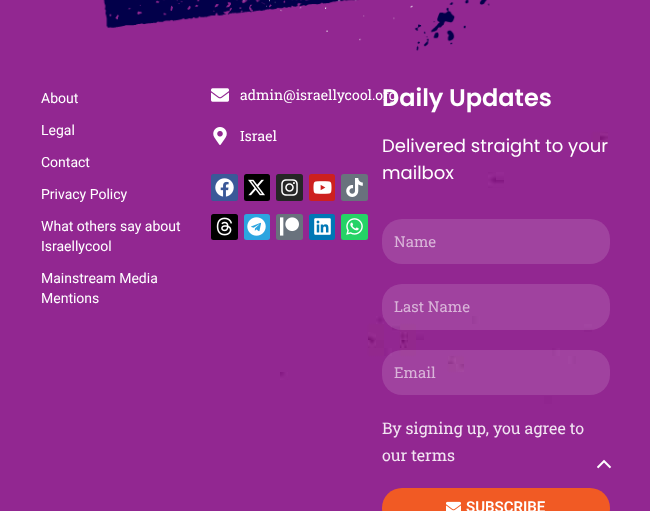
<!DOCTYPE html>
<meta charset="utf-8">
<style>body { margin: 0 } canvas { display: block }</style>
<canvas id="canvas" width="650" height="511"></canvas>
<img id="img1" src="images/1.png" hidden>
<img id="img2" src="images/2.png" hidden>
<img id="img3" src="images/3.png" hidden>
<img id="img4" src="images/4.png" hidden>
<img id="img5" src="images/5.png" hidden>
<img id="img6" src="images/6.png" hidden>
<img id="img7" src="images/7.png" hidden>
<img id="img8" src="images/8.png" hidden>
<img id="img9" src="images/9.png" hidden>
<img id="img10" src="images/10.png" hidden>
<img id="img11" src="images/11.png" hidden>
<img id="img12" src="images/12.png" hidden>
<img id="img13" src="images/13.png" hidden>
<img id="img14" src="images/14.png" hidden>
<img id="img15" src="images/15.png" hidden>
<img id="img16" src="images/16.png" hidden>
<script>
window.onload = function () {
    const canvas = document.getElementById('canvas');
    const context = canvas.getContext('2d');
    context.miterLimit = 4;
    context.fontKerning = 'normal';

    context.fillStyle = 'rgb(255, 255, 255)';
    context.fillRect(0, 0, 650, 511);
    context.drawImage(document.getElementById('img1'), 0, 0, 650, 511);
    context.drawImage(document.getElementById('img2'), 103, 0, 387, 51);
    context.drawImage(document.getElementById('img3'), 211, 88, 18, 14);
    context.drawImage(document.getElementById('img4'), 213, 127, 14, 18);
    context.fillStyle = 'rgb(59, 89, 152)';
    context.beginPath();
    context.roundRect(211, 174, 27, 27, 2.5);
    context.fill();
    context.drawImage(document.getElementById('img5'), 215, 178, 19, 19);
    context.fillStyle = 'rgb(0, 0, 0)';
    context.beginPath();
    context.roundRect(244, 174, 26, 27, 2.5);
    context.fill();
    context.drawImage(document.getElementById('img6'), 248, 179, 17, 17);
    context.fillStyle = 'rgb(38, 38, 38)';
    context.beginPath();
    context.roundRect(276, 174, 27, 27, 2.5);
    context.fill();
    context.drawImage(document.getElementById('img7'), 281, 179, 17, 17);
    context.fillStyle = 'rgb(205, 32, 31)';
    context.beginPath();
    context.roundRect(309, 174, 26, 27, 2.5);
    context.fill();
    context.drawImage(document.getElementById('img8'), 313, 181, 19, 13);
    context.fillStyle = 'rgb(105, 114, 125)';
    context.beginPath();
    context.roundRect(341, 174, 27, 27, 2.5);
    context.fill();
    context.drawImage(document.getElementById('img9'), 346, 178, 17, 19);
    context.fillStyle = 'rgb(0, 0, 0)';
    context.beginPath();
    context.roundRect(211, 214, 27, 26, 2.5);
    context.fill();
    context.drawImage(document.getElementById('img10'), 216, 217, 17, 19);
    context.fillStyle = 'rgb(44, 165, 224)';
    context.beginPath();
    context.roundRect(244, 214, 26, 26, 2.5);
    context.fill();
    context.drawImage(document.getElementById('img11'), 247, 217, 19, 19);
    context.fillStyle = 'rgb(105, 114, 125)';
    context.beginPath();
    context.roundRect(276, 214, 27, 26, 2.5);
    context.fill();
    context.drawImage(document.getElementById('img12'), 280, 217, 19, 19);
    context.fillStyle = 'rgb(0, 119, 181)';
    context.beginPath();
    context.roundRect(309, 214, 26, 26, 2.5);
    context.fill();
    context.drawImage(document.getElementById('img13'), 314, 218, 17, 17);
    context.fillStyle = 'rgb(37, 211, 102)';
    context.beginPath();
    context.roundRect(341, 214, 27, 26, 2.5);
    context.fill();
    context.drawImage(document.getElementById('img14'), 346, 218, 17, 17);
    context.fillStyle = 'rgb(160, 67, 159)';
    context.beginPath();
    context.roundRect(382, 219, 228, 45, 20);
    context.fill();
    context.fillStyle = 'rgba(255, 255, 255, 0.13)';
    context.beginPath();
    context.roundRect(382, 284, 228, 46, 20);
    context.fill();
    context.beginPath();
    context.roundRect(382, 350, 228, 45, 20);
    context.fill();
    context.fillStyle = 'rgb(241, 90, 36)';
    context.beginPath();
    context.roundRect(382, 488, 228, 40, 20);
    context.fill();
    context.drawImage(document.getElementById('img15'), 446, 501, 15, 10);
    context.drawImage(document.getElementById('img16'), 597, 459, 15, 10);
    context.font = '14px Roboto';
    context.fillStyle = 'rgb(255, 255, 255)';
    context.fillText('About', 41, 103);
    context.fillText('Legal', 41, 135);
    context.fillText('Contact', 41, 167);
    context.fillText('Privacy Policy', 41, 199);
    context.fillText('What others say about', 41, 231);
    context.fillText('Israellycool', 41, 251);
    context.fillText('Mainstream Media', 41, 283);
    context.fillText('Mentions', 41, 303);
    context.font = '14px Roboto Slab';
    context.fillText('admin@israellycool.org', 240, 100);
    context.fillText('Israel', 240, 141);
    context.font = '600 24px Poppins';
    context.fillText('Daily Updates', 382, 106);
    context.font = '18px Poppins';
    context.fillText('Delivered straight to your', 382, 152);
    context.fillText('mailbox', 382, 179);
    context.font = '15px Roboto Slab';
    context.fillStyle = 'rgb(217, 180, 217)';
    context.fillText('Name', 394, 247);
    context.fillText('Last Name', 394, 312);
    context.fillText('Email', 394, 378);
    context.font = '16px Roboto Slab';
    context.fillStyle = 'rgb(242, 229, 242)';
    context.fillText('By signing up, you agree to', 382, 434);
    context.fillText('our terms', 382, 461);
    context.font = '600 15px Roboto';
    context.fillStyle = 'rgb(255, 255, 255)';
    context.fillText('SUBSCRIBE', 466, 512);
};
</script>
